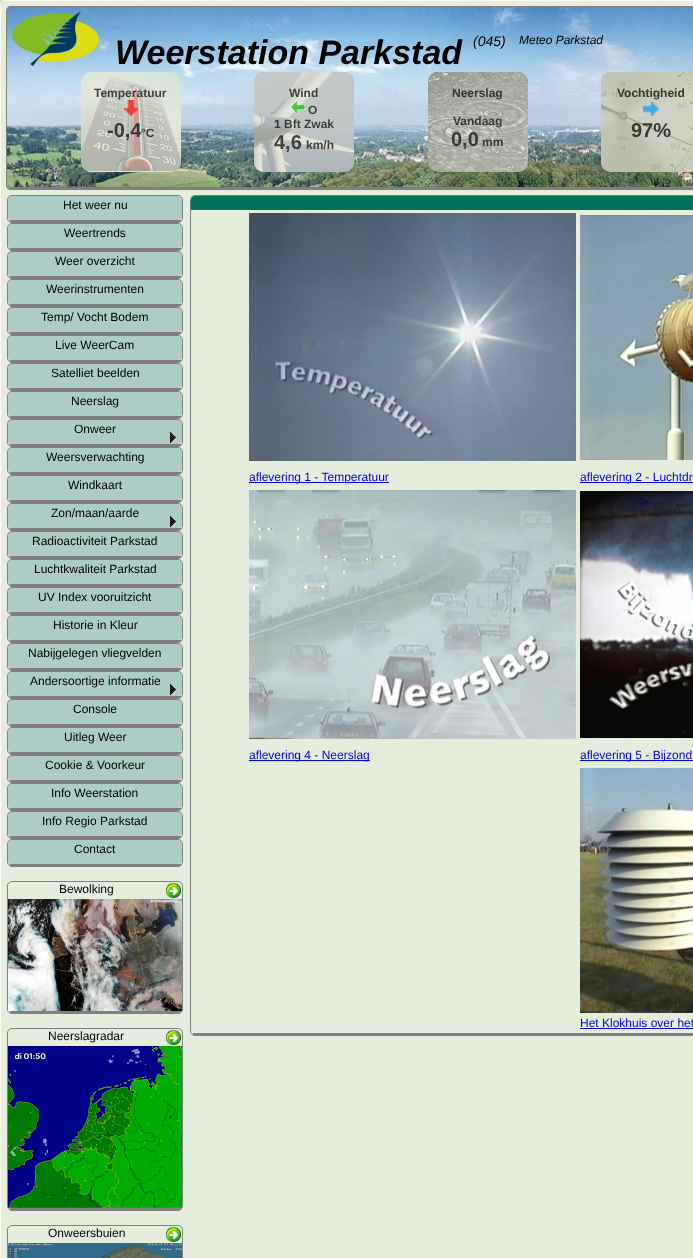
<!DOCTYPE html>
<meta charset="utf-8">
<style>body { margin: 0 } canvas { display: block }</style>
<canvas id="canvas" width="693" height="1258"></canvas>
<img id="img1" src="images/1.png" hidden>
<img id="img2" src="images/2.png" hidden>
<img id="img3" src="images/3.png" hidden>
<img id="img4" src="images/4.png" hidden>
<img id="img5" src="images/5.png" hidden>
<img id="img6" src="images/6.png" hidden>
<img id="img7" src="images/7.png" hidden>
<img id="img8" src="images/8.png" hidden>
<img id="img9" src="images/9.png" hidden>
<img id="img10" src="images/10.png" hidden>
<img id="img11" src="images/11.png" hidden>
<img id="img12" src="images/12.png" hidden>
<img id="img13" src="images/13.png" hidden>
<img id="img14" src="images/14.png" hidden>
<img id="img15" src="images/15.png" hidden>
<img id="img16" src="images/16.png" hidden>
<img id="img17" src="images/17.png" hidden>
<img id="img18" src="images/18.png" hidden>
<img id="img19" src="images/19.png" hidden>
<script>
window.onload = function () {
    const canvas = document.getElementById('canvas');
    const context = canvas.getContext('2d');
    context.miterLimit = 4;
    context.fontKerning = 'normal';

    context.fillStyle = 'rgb(213, 220, 202)';
    context.fillRect(0, 0, 693, 1258);
    context.fillStyle = 'rgb(229, 237, 221)';
    context.beginPath();
    context.roundRect(0.5, 0.5, 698, 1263, 4.5);
    context.fill();
    context.strokeStyle = 'rgb(253, 251, 235)';
    context.stroke();
    context.drawImage(document.getElementById('img1'), 6, 6, 687, 184);
    context.beginPath();
    context.roundRect(6.5, 6.5, 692, 183, 4.5);
    context.strokeStyle = 'rgb(128, 128, 128)';
    context.stroke();
    context.fillStyle = 'rgb(128, 128, 128)';
    context.fillRect(9, 187, 684, 2);
    context.drawImage(document.getElementById('img2'), 12, 12, 87, 54);
    context.fillStyle = 'rgb(197, 197, 186)';
    context.beginPath();
    context.roundRect(81, 72, 100, 100, 10);
    context.fill();
    context.drawImage(document.getElementById('img3'), 81, 72, 100, 100);
    context.fillStyle = 'rgba(213, 220, 202, 0.7)';
    context.beginPath();
    context.roundRect(81, 72, 100, 100, 10);
    context.fill();
    context.drawImage(document.getElementById('img4'), 124, 100, 14, 16);
    context.fillStyle = 'rgb(197, 197, 186)';
    context.beginPath();
    context.roundRect(254, 72, 100, 100, 10);
    context.fill();
    context.drawImage(document.getElementById('img5'), 254, 72, 100, 100);
    context.fillStyle = 'rgba(213, 220, 202, 0.7)';
    context.beginPath();
    context.roundRect(254, 72, 100, 100, 10);
    context.fill();
    context.drawImage(document.getElementById('img6'), 291, 100, 14, 14);
    context.fillStyle = 'rgb(197, 197, 186)';
    context.beginPath();
    context.roundRect(428, 72, 100, 100, 10);
    context.fill();
    context.drawImage(document.getElementById('img7'), 428, 72, 100, 100);
    context.fillStyle = 'rgba(213, 220, 202, 0.7)';
    context.beginPath();
    context.roundRect(428, 72, 100, 100, 10);
    context.fill();
    context.fillStyle = 'rgb(197, 197, 186)';
    context.beginPath();
    context.roundRect(601, 72, 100, 100, 10);
    context.fill();
    context.drawImage(document.getElementById('img8'), 601, 72, 92, 100);
    context.fillStyle = 'rgba(213, 220, 202, 0.7)';
    context.beginPath();
    context.roundRect(601, 72, 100, 100, 10);
    context.fill();
    context.drawImage(document.getElementById('img9'), 643, 101, 16, 15);
    context.fillStyle = 'rgb(173, 204, 197)';
    context.beginPath();
    context.moveTo(12, 196);
    context.lineTo(178, 196);
    context.bezierCurveTo(180, 196, 182, 198, 182, 200);
    context.lineTo(182, 218);
    context.bezierCurveTo(182, 219, 180, 220, 178, 220);
    context.lineTo(12, 220);
    context.bezierCurveTo(10, 220, 8, 219, 8, 218);
    context.lineTo(8, 200);
    context.bezierCurveTo(8, 198, 10, 196, 12, 196);
    context.closePath();
    context.fill();
    context.beginPath();
    context.roundRect(7.5, 195.5, 175, 27, 4.5);
    context.stroke();
    context.fillStyle = 'rgb(128, 128, 128)';
    context.fillRect(10, 220, 171, 2);
    context.fillStyle = 'rgb(173, 204, 197)';
    context.beginPath();
    context.moveTo(12, 224);
    context.lineTo(178, 224);
    context.bezierCurveTo(180, 224, 182, 226, 182, 228);
    context.lineTo(182, 246);
    context.bezierCurveTo(182, 247, 180, 248, 178, 248);
    context.lineTo(12, 248);
    context.bezierCurveTo(10, 248, 8, 247, 8, 246);
    context.lineTo(8, 228);
    context.bezierCurveTo(8, 226, 10, 224, 12, 224);
    context.closePath();
    context.fill();
    context.beginPath();
    context.roundRect(7.5, 223.5, 175, 27, 4.5);
    context.stroke();
    context.fillStyle = 'rgb(128, 128, 128)';
    context.fillRect(10, 248, 171, 2);
    context.fillStyle = 'rgb(173, 204, 197)';
    context.beginPath();
    context.moveTo(12, 252);
    context.lineTo(178, 252);
    context.bezierCurveTo(180, 252, 182, 254, 182, 256);
    context.lineTo(182, 274);
    context.bezierCurveTo(182, 275, 180, 276, 178, 276);
    context.lineTo(12, 276);
    context.bezierCurveTo(10, 276, 8, 275, 8, 274);
    context.lineTo(8, 256);
    context.bezierCurveTo(8, 254, 10, 252, 12, 252);
    context.closePath();
    context.fill();
    context.beginPath();
    context.roundRect(7.5, 251.5, 175, 27, 4.5);
    context.stroke();
    context.fillStyle = 'rgb(128, 128, 128)';
    context.fillRect(10, 276, 171, 2);
    context.fillStyle = 'rgb(173, 204, 197)';
    context.beginPath();
    context.moveTo(12, 280);
    context.lineTo(178, 280);
    context.bezierCurveTo(180, 280, 182, 282, 182, 284);
    context.lineTo(182, 302);
    context.bezierCurveTo(182, 303, 180, 304, 178, 304);
    context.lineTo(12, 304);
    context.bezierCurveTo(10, 304, 8, 303, 8, 302);
    context.lineTo(8, 284);
    context.bezierCurveTo(8, 282, 10, 280, 12, 280);
    context.closePath();
    context.fill();
    context.beginPath();
    context.roundRect(7.5, 279.5, 175, 27, 4.5);
    context.stroke();
    context.fillStyle = 'rgb(128, 128, 128)';
    context.fillRect(10, 304, 171, 2);
    context.fillStyle = 'rgb(173, 204, 197)';
    context.beginPath();
    context.moveTo(12, 308);
    context.lineTo(178, 308);
    context.bezierCurveTo(180, 308, 182, 310, 182, 312);
    context.lineTo(182, 330);
    context.bezierCurveTo(182, 331, 180, 332, 178, 332);
    context.lineTo(12, 332);
    context.bezierCurveTo(10, 332, 8, 331, 8, 330);
    context.lineTo(8, 312);
    context.bezierCurveTo(8, 310, 10, 308, 12, 308);
    context.closePath();
    context.fill();
    context.beginPath();
    context.roundRect(7.5, 307.5, 175, 27, 4.5);
    context.stroke();
    context.fillStyle = 'rgb(128, 128, 128)';
    context.fillRect(10, 332, 171, 2);
    context.fillStyle = 'rgb(173, 204, 197)';
    context.beginPath();
    context.moveTo(12, 336);
    context.lineTo(178, 336);
    context.bezierCurveTo(180, 336, 182, 338, 182, 340);
    context.lineTo(182, 358);
    context.bezierCurveTo(182, 359, 180, 360, 178, 360);
    context.lineTo(12, 360);
    context.bezierCurveTo(10, 360, 8, 359, 8, 358);
    context.lineTo(8, 340);
    context.bezierCurveTo(8, 338, 10, 336, 12, 336);
    context.closePath();
    context.fill();
    context.beginPath();
    context.roundRect(7.5, 335.5, 175, 27, 4.5);
    context.stroke();
    context.fillStyle = 'rgb(128, 128, 128)';
    context.fillRect(10, 360, 171, 2);
    context.fillStyle = 'rgb(173, 204, 197)';
    context.beginPath();
    context.moveTo(12, 364);
    context.lineTo(178, 364);
    context.bezierCurveTo(180, 364, 182, 366, 182, 368);
    context.lineTo(182, 386);
    context.bezierCurveTo(182, 387, 180, 388, 178, 388);
    context.lineTo(12, 388);
    context.bezierCurveTo(10, 388, 8, 387, 8, 386);
    context.lineTo(8, 368);
    context.bezierCurveTo(8, 366, 10, 364, 12, 364);
    context.closePath();
    context.fill();
    context.beginPath();
    context.roundRect(7.5, 363.5, 175, 27, 4.5);
    context.stroke();
    context.fillStyle = 'rgb(128, 128, 128)';
    context.fillRect(10, 388, 171, 2);
    context.fillStyle = 'rgb(173, 204, 197)';
    context.beginPath();
    context.moveTo(12, 392);
    context.lineTo(178, 392);
    context.bezierCurveTo(180, 392, 182, 394, 182, 396);
    context.lineTo(182, 414);
    context.bezierCurveTo(182, 415, 180, 416, 178, 416);
    context.lineTo(12, 416);
    context.bezierCurveTo(10, 416, 8, 415, 8, 414);
    context.lineTo(8, 396);
    context.bezierCurveTo(8, 394, 10, 392, 12, 392);
    context.closePath();
    context.fill();
    context.beginPath();
    context.roundRect(7.5, 391.5, 175, 27, 4.5);
    context.stroke();
    context.fillStyle = 'rgb(128, 128, 128)';
    context.fillRect(10, 416, 171, 2);
    context.fillStyle = 'rgb(173, 204, 197)';
    context.beginPath();
    context.moveTo(12, 420);
    context.lineTo(178, 420);
    context.bezierCurveTo(180, 420, 182, 422, 182, 424);
    context.lineTo(182, 442);
    context.bezierCurveTo(182, 443, 180, 444, 178, 444);
    context.lineTo(12, 444);
    context.bezierCurveTo(10, 444, 8, 443, 8, 442);
    context.lineTo(8, 424);
    context.bezierCurveTo(8, 422, 10, 420, 12, 420);
    context.closePath();
    context.fill();
    context.drawImage(document.getElementById('img10'), 170, 432, 6, 11);
    context.beginPath();
    context.roundRect(7.5, 419.5, 175, 27, 4.5);
    context.stroke();
    context.fillStyle = 'rgb(128, 128, 128)';
    context.fillRect(10, 444, 171, 2);
    context.fillStyle = 'rgb(173, 204, 197)';
    context.beginPath();
    context.moveTo(12, 448);
    context.lineTo(178, 448);
    context.bezierCurveTo(180, 448, 182, 450, 182, 452);
    context.lineTo(182, 470);
    context.bezierCurveTo(182, 471, 180, 472, 178, 472);
    context.lineTo(12, 472);
    context.bezierCurveTo(10, 472, 8, 471, 8, 470);
    context.lineTo(8, 452);
    context.bezierCurveTo(8, 450, 10, 448, 12, 448);
    context.closePath();
    context.fill();
    context.beginPath();
    context.roundRect(7.5, 447.5, 175, 27, 4.5);
    context.stroke();
    context.fillStyle = 'rgb(128, 128, 128)';
    context.fillRect(10, 472, 171, 2);
    context.fillStyle = 'rgb(173, 204, 197)';
    context.beginPath();
    context.moveTo(12, 476);
    context.lineTo(178, 476);
    context.bezierCurveTo(180, 476, 182, 478, 182, 480);
    context.lineTo(182, 498);
    context.bezierCurveTo(182, 499, 180, 500, 178, 500);
    context.lineTo(12, 500);
    context.bezierCurveTo(10, 500, 8, 499, 8, 498);
    context.lineTo(8, 480);
    context.bezierCurveTo(8, 478, 10, 476, 12, 476);
    context.closePath();
    context.fill();
    context.beginPath();
    context.roundRect(7.5, 475.5, 175, 27, 4.5);
    context.stroke();
    context.fillStyle = 'rgb(128, 128, 128)';
    context.fillRect(10, 500, 171, 2);
    context.fillStyle = 'rgb(173, 204, 197)';
    context.beginPath();
    context.moveTo(12, 504);
    context.lineTo(178, 504);
    context.bezierCurveTo(180, 504, 182, 506, 182, 508);
    context.lineTo(182, 526);
    context.bezierCurveTo(182, 527, 180, 528, 178, 528);
    context.lineTo(12, 528);
    context.bezierCurveTo(10, 528, 8, 527, 8, 526);
    context.lineTo(8, 508);
    context.bezierCurveTo(8, 506, 10, 504, 12, 504);
    context.closePath();
    context.fill();
    context.drawImage(document.getElementById('img10'), 170, 516, 6, 11);
    context.beginPath();
    context.roundRect(7.5, 503.5, 175, 27, 4.5);
    context.stroke();
    context.fillStyle = 'rgb(128, 128, 128)';
    context.fillRect(10, 528, 171, 2);
    context.fillStyle = 'rgb(173, 204, 197)';
    context.beginPath();
    context.moveTo(12, 532);
    context.lineTo(178, 532);
    context.bezierCurveTo(180, 532, 182, 534, 182, 536);
    context.lineTo(182, 554);
    context.bezierCurveTo(182, 555, 180, 556, 178, 556);
    context.lineTo(12, 556);
    context.bezierCurveTo(10, 556, 8, 555, 8, 554);
    context.lineTo(8, 536);
    context.bezierCurveTo(8, 534, 10, 532, 12, 532);
    context.closePath();
    context.fill();
    context.beginPath();
    context.roundRect(7.5, 531.5, 175, 27, 4.5);
    context.stroke();
    context.fillStyle = 'rgb(128, 128, 128)';
    context.fillRect(10, 556, 171, 2);
    context.fillStyle = 'rgb(173, 204, 197)';
    context.beginPath();
    context.moveTo(12, 560);
    context.lineTo(178, 560);
    context.bezierCurveTo(180, 560, 182, 562, 182, 564);
    context.lineTo(182, 582);
    context.bezierCurveTo(182, 583, 180, 584, 178, 584);
    context.lineTo(12, 584);
    context.bezierCurveTo(10, 584, 8, 583, 8, 582);
    context.lineTo(8, 564);
    context.bezierCurveTo(8, 562, 10, 560, 12, 560);
    context.closePath();
    context.fill();
    context.beginPath();
    context.roundRect(7.5, 559.5, 175, 27, 4.5);
    context.stroke();
    context.fillStyle = 'rgb(128, 128, 128)';
    context.fillRect(10, 584, 171, 2);
    context.fillStyle = 'rgb(173, 204, 197)';
    context.beginPath();
    context.moveTo(12, 588);
    context.lineTo(178, 588);
    context.bezierCurveTo(180, 588, 182, 590, 182, 592);
    context.lineTo(182, 610);
    context.bezierCurveTo(182, 611, 180, 612, 178, 612);
    context.lineTo(12, 612);
    context.bezierCurveTo(10, 612, 8, 611, 8, 610);
    context.lineTo(8, 592);
    context.bezierCurveTo(8, 590, 10, 588, 12, 588);
    context.closePath();
    context.fill();
    context.beginPath();
    context.roundRect(7.5, 587.5, 175, 27, 4.5);
    context.stroke();
    context.fillStyle = 'rgb(128, 128, 128)';
    context.fillRect(10, 612, 171, 2);
    context.fillStyle = 'rgb(173, 204, 197)';
    context.beginPath();
    context.moveTo(12, 616);
    context.lineTo(178, 616);
    context.bezierCurveTo(180, 616, 182, 618, 182, 620);
    context.lineTo(182, 638);
    context.bezierCurveTo(182, 639, 180, 640, 178, 640);
    context.lineTo(12, 640);
    context.bezierCurveTo(10, 640, 8, 639, 8, 638);
    context.lineTo(8, 620);
    context.bezierCurveTo(8, 618, 10, 616, 12, 616);
    context.closePath();
    context.fill();
    context.beginPath();
    context.roundRect(7.5, 615.5, 175, 27, 4.5);
    context.stroke();
    context.fillStyle = 'rgb(128, 128, 128)';
    context.fillRect(10, 640, 171, 2);
    context.fillStyle = 'rgb(173, 204, 197)';
    context.beginPath();
    context.moveTo(12, 644);
    context.lineTo(178, 644);
    context.bezierCurveTo(180, 644, 182, 646, 182, 648);
    context.lineTo(182, 666);
    context.bezierCurveTo(182, 667, 180, 668, 178, 668);
    context.lineTo(12, 668);
    context.bezierCurveTo(10, 668, 8, 667, 8, 666);
    context.lineTo(8, 648);
    context.bezierCurveTo(8, 646, 10, 644, 12, 644);
    context.closePath();
    context.fill();
    context.beginPath();
    context.roundRect(7.5, 643.5, 175, 27, 4.5);
    context.stroke();
    context.fillStyle = 'rgb(128, 128, 128)';
    context.fillRect(10, 668, 171, 2);
    context.fillStyle = 'rgb(173, 204, 197)';
    context.beginPath();
    context.moveTo(12, 672);
    context.lineTo(178, 672);
    context.bezierCurveTo(180, 672, 182, 674, 182, 676);
    context.lineTo(182, 694);
    context.bezierCurveTo(182, 695, 180, 696, 178, 696);
    context.lineTo(12, 696);
    context.bezierCurveTo(10, 696, 8, 695, 8, 694);
    context.lineTo(8, 676);
    context.bezierCurveTo(8, 674, 10, 672, 12, 672);
    context.closePath();
    context.fill();
    context.drawImage(document.getElementById('img10'), 170, 684, 6, 11);
    context.beginPath();
    context.roundRect(7.5, 671.5, 175, 27, 4.5);
    context.stroke();
    context.fillStyle = 'rgb(128, 128, 128)';
    context.fillRect(10, 696, 171, 2);
    context.fillStyle = 'rgb(173, 204, 197)';
    context.beginPath();
    context.moveTo(12, 700);
    context.lineTo(178, 700);
    context.bezierCurveTo(180, 700, 182, 702, 182, 704);
    context.lineTo(182, 722);
    context.bezierCurveTo(182, 723, 180, 724, 178, 724);
    context.lineTo(12, 724);
    context.bezierCurveTo(10, 724, 8, 723, 8, 722);
    context.lineTo(8, 704);
    context.bezierCurveTo(8, 702, 10, 700, 12, 700);
    context.closePath();
    context.fill();
    context.beginPath();
    context.roundRect(7.5, 699.5, 175, 27, 4.5);
    context.stroke();
    context.fillStyle = 'rgb(128, 128, 128)';
    context.fillRect(10, 724, 171, 2);
    context.fillStyle = 'rgb(173, 204, 197)';
    context.beginPath();
    context.moveTo(12, 728);
    context.lineTo(178, 728);
    context.bezierCurveTo(180, 728, 182, 730, 182, 732);
    context.lineTo(182, 750);
    context.bezierCurveTo(182, 751, 180, 752, 178, 752);
    context.lineTo(12, 752);
    context.bezierCurveTo(10, 752, 8, 751, 8, 750);
    context.lineTo(8, 732);
    context.bezierCurveTo(8, 730, 10, 728, 12, 728);
    context.closePath();
    context.fill();
    context.beginPath();
    context.roundRect(7.5, 727.5, 175, 27, 4.5);
    context.stroke();
    context.fillStyle = 'rgb(128, 128, 128)';
    context.fillRect(10, 752, 171, 2);
    context.fillStyle = 'rgb(173, 204, 197)';
    context.beginPath();
    context.moveTo(12, 756);
    context.lineTo(178, 756);
    context.bezierCurveTo(180, 756, 182, 758, 182, 760);
    context.lineTo(182, 778);
    context.bezierCurveTo(182, 779, 180, 780, 178, 780);
    context.lineTo(12, 780);
    context.bezierCurveTo(10, 780, 8, 779, 8, 778);
    context.lineTo(8, 760);
    context.bezierCurveTo(8, 758, 10, 756, 12, 756);
    context.closePath();
    context.fill();
    context.beginPath();
    context.roundRect(7.5, 755.5, 175, 27, 4.5);
    context.stroke();
    context.fillStyle = 'rgb(128, 128, 128)';
    context.fillRect(10, 780, 171, 2);
    context.fillStyle = 'rgb(173, 204, 197)';
    context.beginPath();
    context.moveTo(12, 784);
    context.lineTo(178, 784);
    context.bezierCurveTo(180, 784, 182, 786, 182, 788);
    context.lineTo(182, 806);
    context.bezierCurveTo(182, 807, 180, 808, 178, 808);
    context.lineTo(12, 808);
    context.bezierCurveTo(10, 808, 8, 807, 8, 806);
    context.lineTo(8, 788);
    context.bezierCurveTo(8, 786, 10, 784, 12, 784);
    context.closePath();
    context.fill();
    context.beginPath();
    context.roundRect(7.5, 783.5, 175, 27, 4.5);
    context.stroke();
    context.fillStyle = 'rgb(128, 128, 128)';
    context.fillRect(10, 808, 171, 2);
    context.fillStyle = 'rgb(173, 204, 197)';
    context.beginPath();
    context.moveTo(12, 812);
    context.lineTo(178, 812);
    context.bezierCurveTo(180, 812, 182, 814, 182, 816);
    context.lineTo(182, 834);
    context.bezierCurveTo(182, 835, 180, 836, 178, 836);
    context.lineTo(12, 836);
    context.bezierCurveTo(10, 836, 8, 835, 8, 834);
    context.lineTo(8, 816);
    context.bezierCurveTo(8, 814, 10, 812, 12, 812);
    context.closePath();
    context.fill();
    context.beginPath();
    context.roundRect(7.5, 811.5, 175, 27, 4.5);
    context.stroke();
    context.fillStyle = 'rgb(128, 128, 128)';
    context.fillRect(10, 836, 171, 2);
    context.fillStyle = 'rgb(173, 204, 197)';
    context.beginPath();
    context.moveTo(12, 840);
    context.lineTo(178, 840);
    context.bezierCurveTo(180, 840, 182, 842, 182, 844);
    context.lineTo(182, 862);
    context.bezierCurveTo(182, 863, 180, 864, 178, 864);
    context.lineTo(12, 864);
    context.bezierCurveTo(10, 864, 8, 863, 8, 862);
    context.lineTo(8, 844);
    context.bezierCurveTo(8, 842, 10, 840, 12, 840);
    context.closePath();
    context.fill();
    context.beginPath();
    context.roundRect(7.5, 839.5, 175, 27, 4.5);
    context.stroke();
    context.fillStyle = 'rgb(128, 128, 128)';
    context.fillRect(10, 864, 171, 2);
    context.beginPath();
    context.roundRect(7.5, 881.5, 175, 132, 4.5);
    context.stroke();
    context.fillRect(10, 1011, 171, 2);
    context.drawImage(document.getElementById('img11'), 166, 883, 15, 15);
    context.drawImage(document.getElementById('img12'), 8, 899, 174, 112);
    context.beginPath();
    context.roundRect(7.5, 1028.5, 175, 182, 4.5);
    context.stroke();
    context.fillRect(10, 1208, 171, 2);
    context.drawImage(document.getElementById('img11'), 166, 1030, 15, 15);
    context.drawImage(document.getElementById('img13'), 8, 1046, 174, 162);
    context.beginPath();
    context.roundRect(7.5, 1225.5, 175, 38, 4.5);
    context.stroke();
    context.drawImage(document.getElementById('img11'), 166, 1227, 15, 15);
    context.drawImage(document.getElementById('img14'), 8, 1243, 174, 15);
    context.beginPath();
    context.roundRect(190.5, 195.5, 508, 840, 4.5);
    context.stroke();
    context.fillRect(193, 1033, 500, 2);
    context.fillStyle = 'rgb(0, 116, 91)';
    context.beginPath();
    context.moveTo(195, 196);
    context.bezierCurveTo(189, 196, 191, 206, 191, 210);
    context.lineTo(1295, 210);
    context.bezierCurveTo(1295, 206, 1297, 196, 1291, 196);
    context.closePath();
    context.fill();
    context.drawImage(document.getElementById('img15'), 249, 213, 327, 248);
    context.drawImage(document.getElementById('img16'), 580, 215, 113, 245);
    context.fillStyle = 'rgb(0, 0, 238)';
    context.fillRect(249, 482, 140, 1);
    context.fillRect(580, 482, 113, 1);
    context.drawImage(document.getElementById('img17'), 249, 490, 327, 249);
    context.drawImage(document.getElementById('img18'), 580, 491, 113, 247);
    context.fillRect(249, 760, 121, 1);
    context.fillRect(580, 760, 113, 1);
    context.drawImage(document.getElementById('img19'), 580, 768, 113, 245);
    context.fillRect(580, 1028, 113, 1);
    context.font = 'italic bold 34px Liberation Sans';
    context.fillStyle = 'rgb(0, 0, 0)';
    context.fillText('Weerstation Parkstad', 115, 64);
    context.font = 'italic 14px Liberation Sans';
    context.fillText('(045)', 473, 46);
    context.font = 'italic 12px Liberation Sans';
    context.fillText('Meteo Parkstad', 519, 44);
    context.font = 'bold 12px Liberation Sans';
    context.fillStyle = 'rgb(63, 64, 61)';
    context.fillText('Temperatuur', 94, 97);
    context.font = 'bold 20px Liberation Sans';
    context.fillStyle = 'rgb(58, 56, 52)';
    context.fillText('-0,4', 107, 137);
    context.font = 'bold 12px Liberation Sans';
    context.fillText('°C', 141, 137);
    context.fillStyle = 'rgb(63, 64, 61)';
    context.fillText('Wind', 289, 97);
    context.fillText('O', 308, 114);
    context.fillStyle = 'rgb(51, 53, 54)';
    context.fillText('1', 274, 128);
    context.fillStyle = 'rgb(63, 64, 61)';
    context.fillText('Bft', 284, 128);
    context.fillText('Zwak', 304, 128);
    context.font = 'bold 20px Liberation Sans';
    context.fillText('4,6', 274, 149);
    context.font = 'bold 12px Liberation Sans';
    context.fillText('km/h', 306, 149);
    context.fillStyle = 'rgb(51, 53, 54)';
    context.fillText('Neerslag', 452, 97);
    context.fillStyle = 'rgb(58, 56, 52)';
    context.fillText('Vandaag', 453, 125);
    context.font = 'bold 20px Liberation Sans';
    context.fillText('0,0', 451, 146);
    context.font = 'bold 12px Liberation Sans';
    context.fillText('mm', 482, 146);
    context.fillText('Vochtigheid', 617, 97);
    context.font = 'bold 20px Liberation Sans';
    context.fillText('97%', 631, 137);
    context.font = '12px Liberation Sans';
    context.fillStyle = 'rgb(0, 0, 0)';
    context.fillText('Het weer nu', 63, 209);
    context.fillText('Weertrends', 64, 237);
    context.fillText('Weer overzicht', 55, 265);
    context.fillText('Weerinstrumenten', 46, 293);
    context.fillText('Temp/ Vocht Bodem', 41, 321);
    context.fillText('Live WeerCam', 55, 349);
    context.fillText('Satelliet beelden', 51, 377);
    context.fillText('Neerslag', 71, 405);
    context.fillText('Onweer', 74, 433);
    context.fillText('Weersverwachting', 46, 461);
    context.fillText('Windkaart', 68, 489);
    context.fillText('Zon/maan/aarde', 51, 517);
    context.fillText('Radioactiviteit Parkstad', 32, 545);
    context.fillText('Luchtkwaliteit Parkstad', 34, 573);
    context.fillText('UV Index vooruitzicht', 38, 601);
    context.fillText('Historie in Kleur', 53, 629);
    context.fillText('Nabijgelegen vliegvelden', 28, 657);
    context.fillText('Andersoortige informatie', 30, 685);
    context.fillText('Console', 73, 713);
    context.fillText('Uitleg Weer', 64, 741);
    context.fillText('Cookie & Voorkeur', 45, 769);
    context.fillText('Info Weerstation', 51, 797);
    context.fillText('Info Regio Parkstad', 42, 825);
    context.fillText('Contact', 74, 853);
    context.fillText('Bewolking', 59, 893);
    context.fillText('Neerslagradar', 48, 1040);
    context.fillText('Onweersbuien', 48, 1237);
    context.fillStyle = 'rgb(0, 0, 238)';
    context.fillText('aflevering 1 - Temperatuur', 249, 481);
    context.fillText('aflevering 2 - Luchtdr', 580, 481);
    context.fillText('aflevering 4 - Neerslag', 249, 759);
    context.fillText('aflevering 5 - Bijzond', 580, 759);
    context.fillText('Het Klokhuis over het', 580, 1027);
};
</script>
